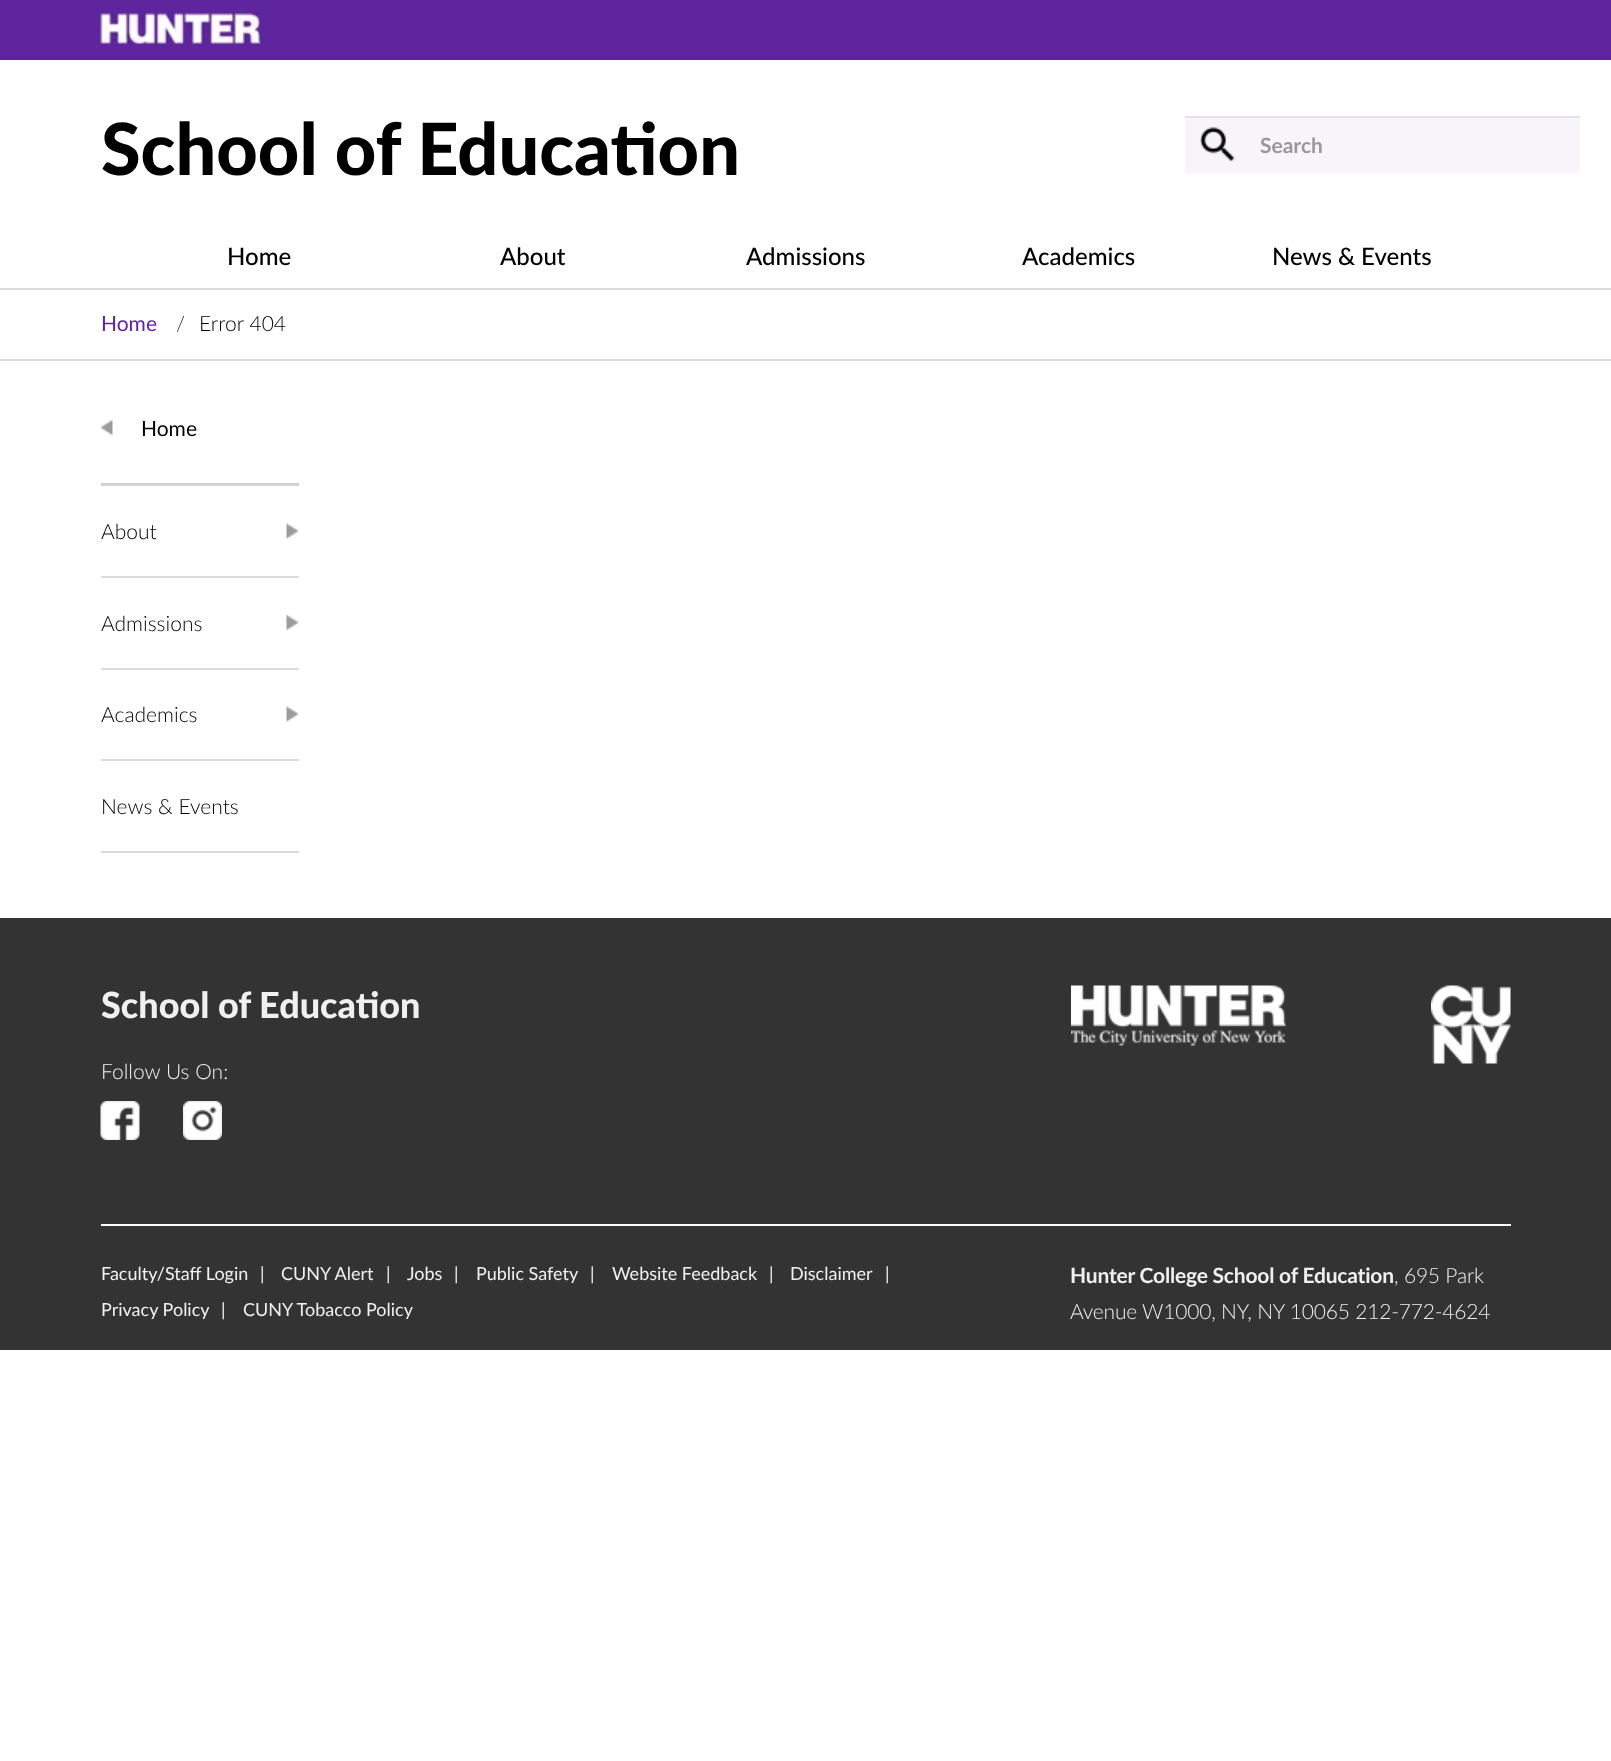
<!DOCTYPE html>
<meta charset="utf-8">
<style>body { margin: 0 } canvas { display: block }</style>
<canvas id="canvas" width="1611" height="1761"></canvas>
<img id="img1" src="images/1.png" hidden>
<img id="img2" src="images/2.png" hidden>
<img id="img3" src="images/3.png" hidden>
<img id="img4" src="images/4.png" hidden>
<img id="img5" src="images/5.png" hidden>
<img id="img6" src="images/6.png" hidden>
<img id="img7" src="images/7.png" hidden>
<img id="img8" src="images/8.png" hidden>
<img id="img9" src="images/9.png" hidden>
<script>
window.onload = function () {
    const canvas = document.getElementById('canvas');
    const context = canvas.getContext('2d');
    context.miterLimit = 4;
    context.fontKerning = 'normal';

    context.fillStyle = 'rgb(255, 255, 255)';
    context.fillRect(0, 0, 1611, 1761);
    context.fillStyle = 'rgb(95, 37, 159)';
    context.fillRect(0, 0, 1611, 60);
    context.drawImage(document.getElementById('img1'), 100, 13, 161, 31);
    context.fillStyle = 'rgb(247, 244, 250)';
    context.fillRect(1185, 118, 395, 55);
    context.drawImage(document.getElementById('img2'), 1200, 127, 35, 35);
    context.fillStyle = 'rgb(228, 226, 231)';
    context.fillRect(1185, 116, 395, 2);
    context.fillStyle = 'rgb(220, 220, 220)';
    context.fillRect(0, 288, 1611, 2);
    context.fillRect(0, 359, 1611, 2);
    context.fillStyle = 'rgb(211, 211, 211)';
    context.fillRect(101, 483, 198, 3);
    context.drawImage(document.getElementById('img3'), 100, 420, 13, 15);
    context.fillStyle = 'rgb(220, 220, 220)';
    context.fillRect(101, 576, 198, 2);
    context.drawImage(document.getElementById('img4'), 286, 523, 13, 16);
    context.fillRect(101, 668, 198, 2);
    context.drawImage(document.getElementById('img5'), 286, 615, 13, 15);
    context.fillRect(101, 759, 198, 2);
    context.drawImage(document.getElementById('img4'), 286, 706, 13, 16);
    context.fillRect(101, 851, 198, 2);
    context.fillStyle = 'rgb(51, 51, 51)';
    context.fillRect(0, 918, 1611, 432);
    context.drawImage(document.getElementById('img6'), 100, 1101, 40, 39);
    context.drawImage(document.getElementById('img7'), 183, 1101, 39, 39);
    context.drawImage(document.getElementById('img8'), 1071, 985, 215, 61);
    context.drawImage(document.getElementById('img9'), 1431, 985, 80, 79);
    context.fillStyle = 'rgb(255, 255, 255)';
    context.fillRect(101, 1224, 1410, 2);
    context.font = '900 72px Lato';
    context.fillStyle = 'rgb(0, 0, 0)';
    context.fillText('School of Education', 101, 175);
    context.font = 'bold 21px Lato';
    context.fillStyle = 'rgb(153, 153, 153)';
    context.fillText('Search', 1260, 153);
    context.font = '500 24px Lato';
    context.fillStyle = 'rgb(0, 0, 0)';
    context.fillText('Home', 227, 265);
    context.fillText('About', 500, 265);
    context.fillText('Admissions', 746, 265);
    context.fillText('Academics', 1022, 265);
    context.fillText('News & Events', 1272, 265);
    context.font = '21px Lato';
    context.fillStyle = 'rgb(95, 37, 159)';
    context.fillText('Home', 101, 331);
    context.font = '300 21px Lato';
    context.fillStyle = 'rgb(52, 52, 52)';
    context.fillText('/', 176, 331);
    context.fillStyle = 'rgb(0, 0, 0)';
    context.fillText('Error 404', 199, 331);
    context.font = '21px Lato';
    context.fillText('Home', 141, 436);
    context.font = '300 21px Lato';
    context.fillText('About', 101, 539);
    context.fillText('Admissions', 101, 631);
    context.fillText('Academics', 101, 722);
    context.fillText('News & Events', 101, 814);
    context.font = '900 36px Lato';
    context.fillStyle = 'rgb(240, 240, 240)';
    context.fillText('School of Education', 101, 1018);
    context.font = '300 21px Lato';
    context.fillText('Follow Us On:', 101, 1079);
    context.font = '18px Lato';
    context.fillText('Faculty/Staff Login', 101, 1280);
    context.fillText('|', 260, 1280);
    context.fillText('CUNY Alert', 281, 1280);
    context.fillText('|', 386, 1280);
    context.fillText('Jobs', 407, 1280);
    context.fillText('|', 454, 1280);
    context.fillText('Public Safety', 476, 1280);
    context.fillText('|', 590, 1280);
    context.fillText('Website Feedback', 612, 1280);
    context.fillText('|', 769, 1280);
    context.fillText('Disclaimer', 790, 1280);
    context.fillText('|', 885, 1280);
    context.fillText('Privacy Policy', 101, 1316);
    context.fillText('|', 221, 1316);
    context.fillText('CUNY Tobacco Policy', 243, 1316);
    context.letterSpacing = '-0.2px';
    context.font = 'bold 21px Lato';
    context.fillText('Hunter College School of Education', 1070, 1283);
    context.font = '300 21px Lato';
    context.fillText(', 695 Park', 1394, 1283);
    context.fillText('Avenue W1000, NY, NY 10065 212-772-4624', 1070, 1319);
};
</script>
